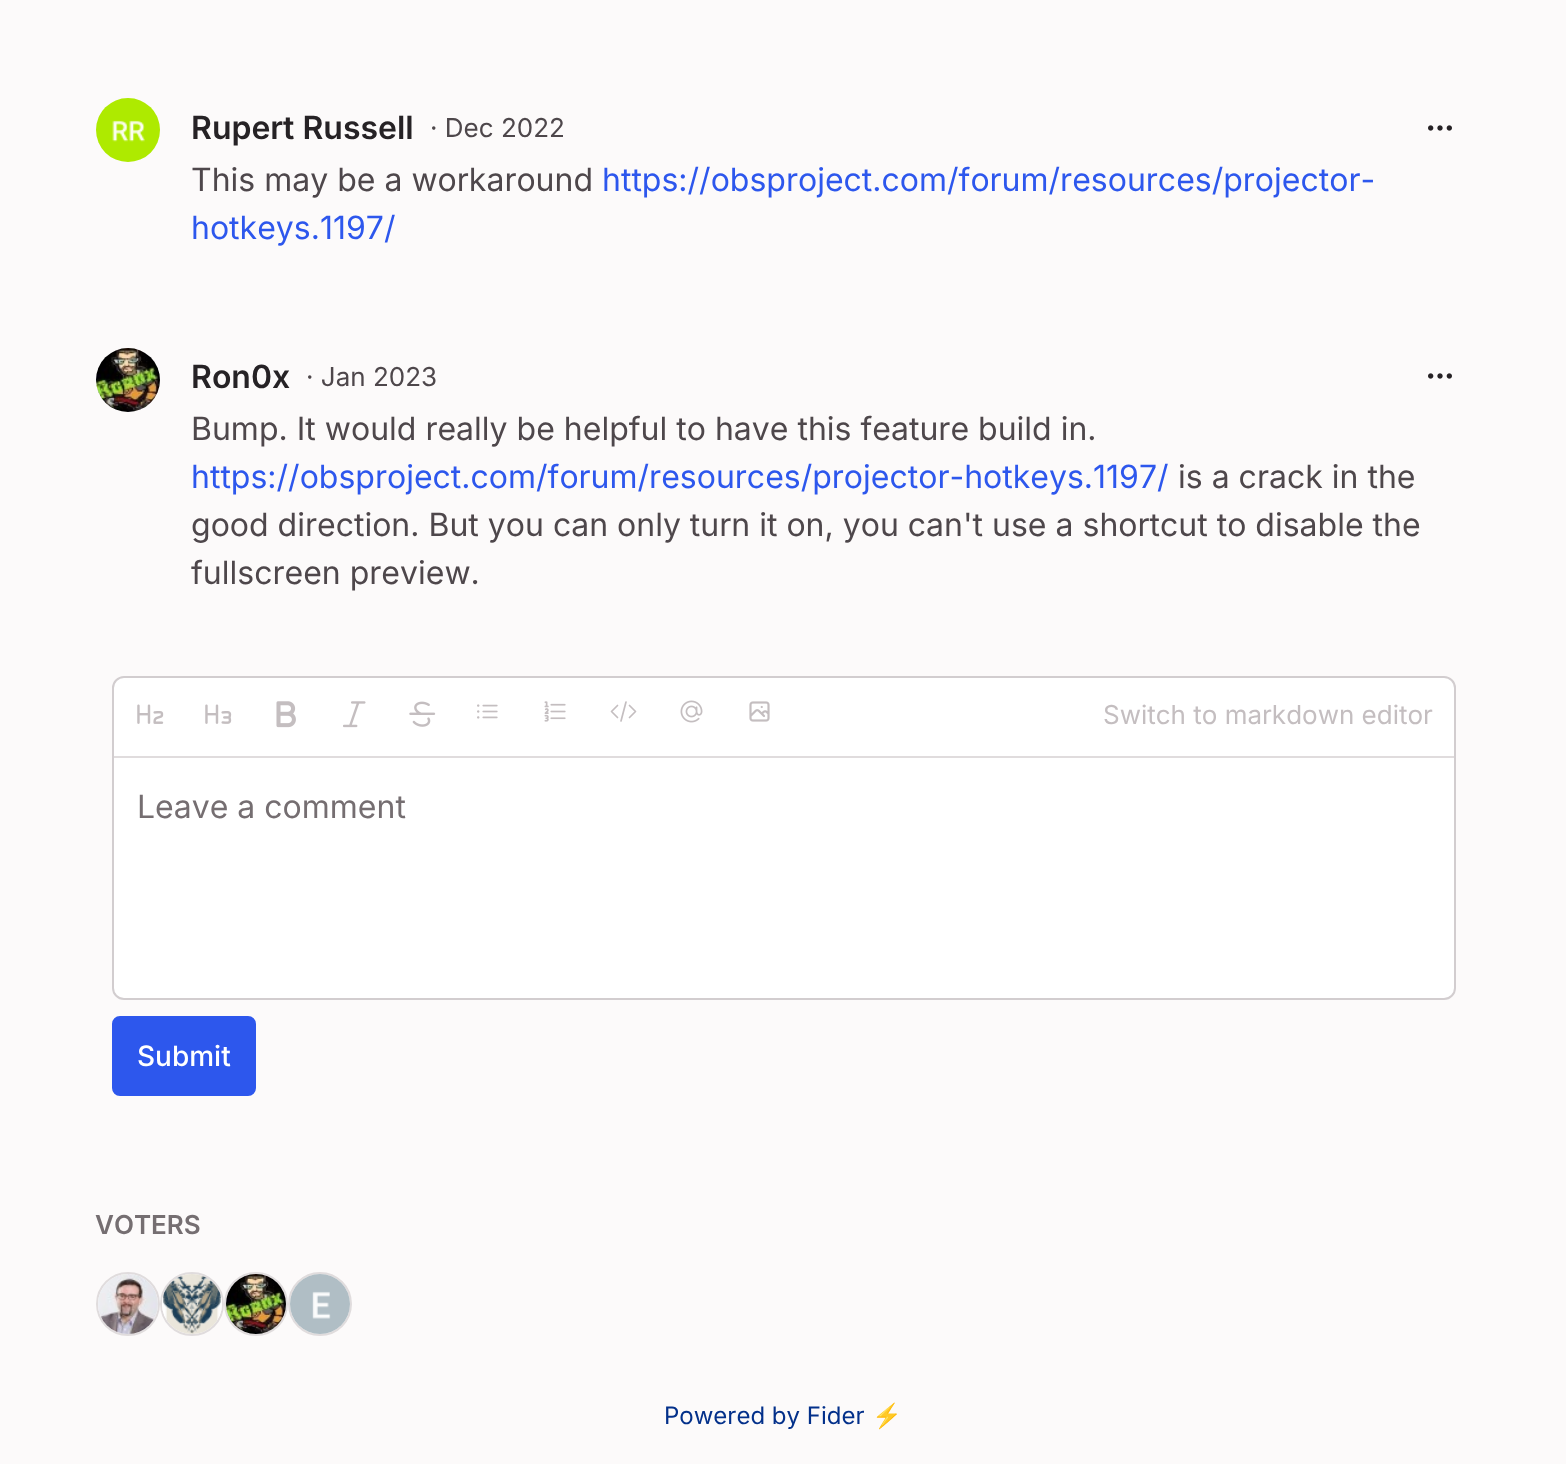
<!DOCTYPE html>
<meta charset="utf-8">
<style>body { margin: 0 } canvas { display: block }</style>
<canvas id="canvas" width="1566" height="1464"></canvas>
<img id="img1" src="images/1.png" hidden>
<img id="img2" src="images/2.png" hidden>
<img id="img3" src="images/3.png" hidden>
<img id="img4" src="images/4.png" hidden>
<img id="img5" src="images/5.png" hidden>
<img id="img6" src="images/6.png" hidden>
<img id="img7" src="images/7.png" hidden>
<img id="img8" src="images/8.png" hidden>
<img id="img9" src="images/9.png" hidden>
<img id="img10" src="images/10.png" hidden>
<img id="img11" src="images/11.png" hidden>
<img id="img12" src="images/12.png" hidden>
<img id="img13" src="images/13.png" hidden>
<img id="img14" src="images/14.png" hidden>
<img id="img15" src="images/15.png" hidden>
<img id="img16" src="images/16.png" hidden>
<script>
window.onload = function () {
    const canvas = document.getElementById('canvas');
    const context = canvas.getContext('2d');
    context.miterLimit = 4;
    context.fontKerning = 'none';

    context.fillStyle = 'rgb(252, 250, 250)';
    context.fillRect(0, 0, 1566, 1464);
    context.drawImage(document.getElementById('img1'), 96, 98, 64, 64);
    context.drawImage(document.getElementById('img2'), 1428, 125, 24, 6);
    context.drawImage(document.getElementById('img3'), 96, 348, 64, 64);
    context.drawImage(document.getElementById('img2'), 1428, 373, 24, 6);
    context.fillStyle = 'rgb(255, 255, 255)';
    context.beginPath();
    context.roundRect(113, 677, 1342, 322, 11);
    context.fill();
    context.strokeStyle = 'rgb(210, 205, 207)';
    context.lineWidth = 2;
    context.stroke();
    context.fillStyle = 'rgb(224, 220, 221)';
    context.fillRect(114, 756, 1340, 2);
    context.drawImage(document.getElementById('img4'), 137, 704, 27, 20);
    context.drawImage(document.getElementById('img5'), 205, 704, 27, 20);
    context.drawImage(document.getElementById('img6'), 276, 701, 20, 27);
    context.drawImage(document.getElementById('img7'), 343, 701, 23, 27);
    context.drawImage(document.getElementById('img8'), 409, 701, 27, 26);
    context.drawImage(document.getElementById('img9'), 477, 704, 21, 15);
    context.drawImage(document.getElementById('img10'), 544, 701, 22, 21);
    context.beginPath();
    context.moveTo(629.5, 705.5);
    context.lineTo(635.5, 711.5);
    context.lineTo(629.5, 717.5);
    context.moveTo(617.5, 717.5);
    context.lineTo(611.5, 711.5);
    context.lineTo(617.5, 705.5);
    context.moveTo(626, 702);
    context.lineTo(621, 721);
    context.strokeStyle = 'rgb(196, 190, 192)';
    context.lineWidth = 1.7;
    context.lineCap = 'round';
    context.lineJoin = 'round';
    context.stroke();
    context.drawImage(document.getElementById('img11'), 680, 700, 23, 23);
    context.drawImage(document.getElementById('img12'), 749, 701, 21, 21);
    context.fillStyle = 'rgb(45, 87, 237)';
    context.beginPath();
    context.roundRect(113, 1017, 142, 78, 7);
    context.fill();
    context.strokeStyle = 'rgb(45, 87, 237)';
    context.lineWidth = 2;
    context.lineJoin = 'miter';
    context.stroke();
    context.beginPath();
    context.arc(128, 1304, 31, 0, 2 * Math.PI);
    context.strokeStyle = 'rgb(224, 220, 221)';
    context.stroke();
    context.drawImage(document.getElementById('img13'), 98, 1274, 60, 60);
    context.beginPath();
    context.arc(192, 1304, 31, 0, 2 * Math.PI);
    context.stroke();
    context.drawImage(document.getElementById('img14'), 162, 1274, 60, 60);
    context.beginPath();
    context.arc(256, 1304, 31, 0, 2 * Math.PI);
    context.stroke();
    context.drawImage(document.getElementById('img15'), 226, 1274, 60, 60);
    context.beginPath();
    context.arc(320, 1304, 31, 0, 2 * Math.PI);
    context.stroke();
    context.drawImage(document.getElementById('img16'), 290, 1274, 60, 60);
    context.font = '600 32px Inter';
    context.fillStyle = 'rgb(38, 34, 37)';
    context.fillText('Rupert Russell', 191, 139);
    context.font = '26px Inter';
    context.fillStyle = 'rgb(78, 71, 75)';
    context.fillText('· Dec 2022', 430, 137);
    context.font = '32px Inter';
    context.fillText('This may be a workaround', 191, 191);
    context.fillStyle = 'rgb(45, 87, 237)';
    context.fillText('https://obsproject.com/forum/resources/projector-', 602, 191);
    context.fillText('hotkeys.1197/', 191, 239);
    context.font = '600 32px Inter';
    context.fillStyle = 'rgb(38, 34, 37)';
    context.fillText('Ron0x', 191, 388);
    context.font = '26px Inter';
    context.fillStyle = 'rgb(78, 71, 75)';
    context.fillText('· Jan 2023', 306, 386);
    context.font = '32px Inter';
    context.fillText('Bump. It would really be helpful to have this feature build in.', 191, 440);
    context.fillStyle = 'rgb(45, 87, 237)';
    context.fillText('https://obsproject.com/forum/resources/projector-hotkeys.1197/', 191, 488);
    context.fillStyle = 'rgb(78, 71, 75)';
    context.fillText('is a crack in the', 1178, 488);
    context.fillText('good direction. But you can only turn it on, you can\'t use a shortcut to disable the', 191, 536);
    context.fillText('fullscreen preview.', 191, 584);
    context.font = '26px Inter';
    context.fillStyle = 'rgb(196, 190, 192)';
    context.fillText('Switch to markdown editor', 1103, 724);
    context.font = '32px Inter';
    context.fillStyle = 'rgb(117, 110, 113)';
    context.fillText('Leave a comment', 137, 818);
    context.font = '500 28px Inter';
    context.fillStyle = 'rgb(255, 255, 255)';
    context.fillText('Submit', 137, 1066);
    context.font = '600 26px Inter';
    context.fillStyle = 'rgb(117, 110, 113)';
    context.fillText('VOTERS', 95, 1234);
    context.font = '24px Inter';
    context.fillStyle = 'rgb(3, 48, 138)';
    context.fillText('Powered by Fider', 664, 1424);
    context.font = '24px Noto Color Emoji';
    context.fillText('⚡', 872, 1424);
};
</script>
